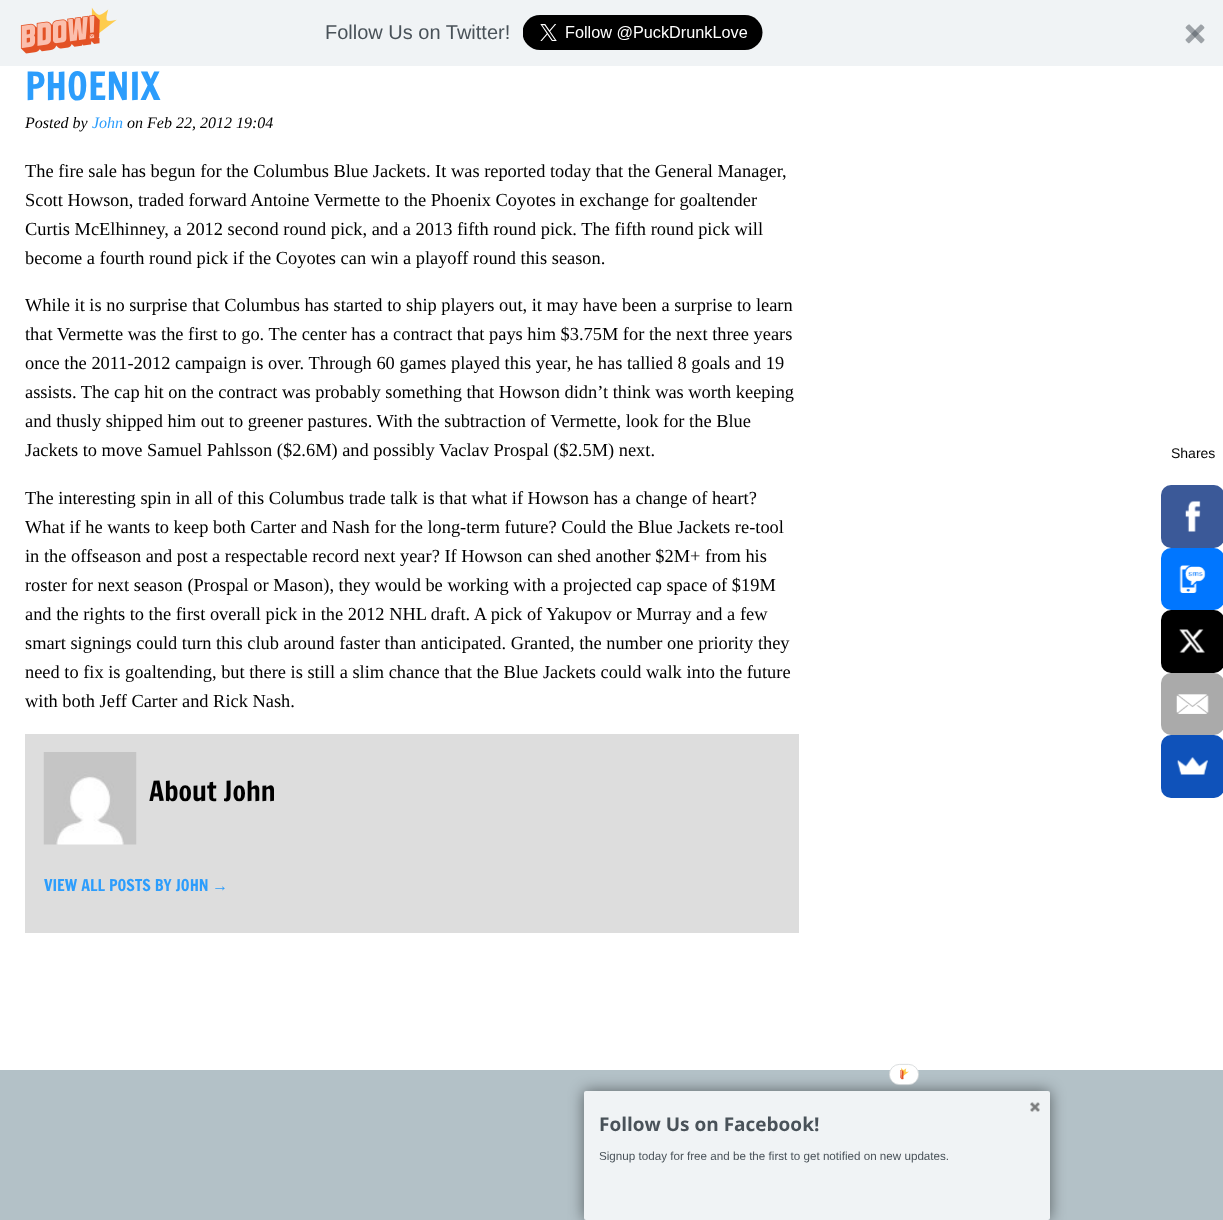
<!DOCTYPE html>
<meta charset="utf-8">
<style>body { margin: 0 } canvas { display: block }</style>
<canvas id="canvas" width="1223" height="1220"></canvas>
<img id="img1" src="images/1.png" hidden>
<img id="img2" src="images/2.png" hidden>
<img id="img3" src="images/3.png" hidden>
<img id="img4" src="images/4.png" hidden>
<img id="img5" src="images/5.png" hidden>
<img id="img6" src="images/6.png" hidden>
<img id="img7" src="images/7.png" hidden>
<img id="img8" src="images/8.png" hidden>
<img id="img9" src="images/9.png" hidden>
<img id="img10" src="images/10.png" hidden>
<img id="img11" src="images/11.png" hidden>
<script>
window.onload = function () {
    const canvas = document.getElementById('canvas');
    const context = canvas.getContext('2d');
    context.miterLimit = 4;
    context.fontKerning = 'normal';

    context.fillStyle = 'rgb(179, 193, 199)';
    context.fillRect(0, 0, 1223, 1220);
    context.fillStyle = 'rgb(240, 243, 245)';
    context.fillRect(0, 0, 1223, 66);
    context.drawImage(document.getElementById('img1'), 20, 7, 97, 47);
    context.drawImage(document.getElementById('img2'), 523, 15, 240, 35);
    context.drawImage(document.getElementById('img3'), 1185, 24, 20, 20);
    context.fillStyle = 'rgb(255, 255, 255)';
    context.fillRect(0, 66, 1223, 1004);
    context.fillStyle = 'rgb(221, 221, 221)';
    context.fillRect(25, 734, 774, 199);
    context.drawImage(document.getElementById('img4'), 43, 752, 94, 93);
    context.fillStyle = 'rgb(59, 89, 152)';
    context.beginPath();
    context.roundRect(1161, 485, 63, 63, 10);
    context.fill();
    context.drawImage(document.getElementById('img5'), 1185, 500, 16, 32);
    context.fillStyle = 'rgb(0, 118, 255)';
    context.beginPath();
    context.roundRect(1161, 548, 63, 62, 10);
    context.fill();
    context.drawImage(document.getElementById('img6'), 1179, 565, 27, 28);
    context.fillStyle = 'rgb(0, 0, 0)';
    context.beginPath();
    context.roundRect(1161, 610, 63, 63, 10);
    context.fill();
    context.drawImage(document.getElementById('img7'), 1179, 629, 26, 24);
    context.fillStyle = 'rgb(170, 170, 170)';
    context.beginPath();
    context.roundRect(1161, 673, 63, 62, 10);
    context.fill();
    context.drawImage(document.getElementById('img8'), 1176, 694, 33, 20);
    context.fillStyle = 'rgb(15, 82, 186)';
    context.beginPath();
    context.roundRect(1161, 735, 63, 63, 10);
    context.fill();
    context.drawImage(document.getElementById('img9'), 1177, 757, 31, 18);
    context.fillStyle = 'rgba(0, 0, 0, 0.5)';
    context.filter = 'blur(7.5px)';
    context.beginPath();
    context.roundRect(584, 1091, 466, 129, 2);
    context.fill();
    context.filter = 'none';
    context.fillStyle = 'rgb(255, 255, 255)';
    context.beginPath();
    context.roundRect(889.4, 1064.4, 29.2, 20.2, 10.1);
    context.fill();
    context.strokeStyle = 'rgb(209, 212, 213)';
    context.lineWidth = 0.8;
    context.stroke();
    context.drawImage(document.getElementById('img10'), 900, 1067, 9, 13);
    context.fillStyle = 'rgb(240, 243, 245)';
    context.beginPath();
    context.roundRect(584, 1091, 466, 129, 2);
    context.fill();
    context.drawImage(document.getElementById('img11'), 1030, 1102, 10, 10);
    context.font = '20px Liberation Sans';
    context.fillStyle = 'rgb(73, 82, 89)';
    context.fillText('Follow Us on Twitter!', 325, 39);
    context.font = '38px Francois One';
    context.fillStyle = 'rgb(44, 157, 252)';
    context.fillText('PHOENIX', 25, 100);
    context.font = 'italic 16px Liberation Serif';
    context.fillStyle = 'rgb(0, 0, 0)';
    context.fillText('Posted by', 25, 128);
    context.fillStyle = 'rgb(44, 157, 252)';
    context.fillText('John', 92, 128);
    context.fillStyle = 'rgb(0, 0, 0)';
    context.fillText('on Feb 22, 2012 19:04', 127, 128);
    context.font = '18.4px Liberation Serif';
    context.fillText('The fire sale has begun for the Columbus Blue Jackets. It was reported today that the General Manager,', 25, 177);
    context.fillText('Scott Howson, traded forward Antoine Vermette to the Phoenix Coyotes in exchange for goaltender', 25, 206);
    context.fillText('Curtis McElhinney, a 2012 second round pick, and a 2013 fifth round pick. The fifth round pick will', 25, 235);
    context.fillText('become a fourth round pick if the Coyotes can win a playoff round this season.', 25, 264);
    context.fillText('While it is no surprise that Columbus has started to ship players out, it may have been a surprise to learn', 25, 311);
    context.fillText('that Vermette was the first to go. The center has a contract that pays him $3.75M for the next three years', 25, 340);
    context.fillText('once the 2011-2012 campaign is over. Through 60 games played this year, he has tallied 8 goals and 19', 25, 369);
    context.fillText('assists. The cap hit on the contract was probably something that Howson didn’t think was worth keeping', 25, 398);
    context.fillText('and thusly shipped him out to greener pastures. With the subtraction of Vermette, look for the Blue', 25, 427);
    context.fillText('Jackets to move Samuel Pahlsson ($2.6M) and possibly Vaclav Prospal ($2.5M) next.', 25, 456);
    context.fillText('The interesting spin in all of this Columbus trade talk is that what if Howson has a change of heart?', 25, 504);
    context.fillText('What if he wants to keep both Carter and Nash for the long-term future? Could the Blue Jackets re-tool', 25, 533);
    context.fillText('in the offseason and post a respectable record next year? If Howson can shed another $2M+ from his', 25, 562);
    context.fillText('roster for next season (Prospal or Mason), they would be working with a projected cap space of $19M', 25, 591);
    context.fillText('and the rights to the first overall pick in the 2012 NHL draft. A pick of Yakupov or Murray and a few', 25, 620);
    context.fillText('smart signings could turn this club around faster than anticipated. Granted, the number one priority they', 25, 649);
    context.fillText('need to fix is goaltending, but there is still a slim chance that the Blue Jackets could walk into the future', 25, 678);
    context.fillText('with both Jeff Carter and Rick Nash.', 25, 707);
    context.font = '27.5px Francois One';
    context.fillText('About John', 149, 801);
    context.font = '16px Francois One';
    context.fillStyle = 'rgb(44, 157, 252)';
    context.fillText('VIEW ALL POSTS BY JOHN', 44, 891);
    context.font = '16px Liberation Sans';
    context.fillText('→', 212, 891);
    context.font = '14px Liberation Sans';
    context.fillStyle = 'rgb(0, 0, 0)';
    context.fillText('Shares', 1171, 458);
    context.font = 'bold 19px Open Sans';
    context.fillStyle = 'rgb(73, 82, 89)';
    context.fillText('Follow Us on Facebook!', 599, 1131);
    context.font = '11.65px Liberation Sans';
    context.fillText('Signup today for free and be the first to get notified on new updates.', 599, 1160);
};
</script>
